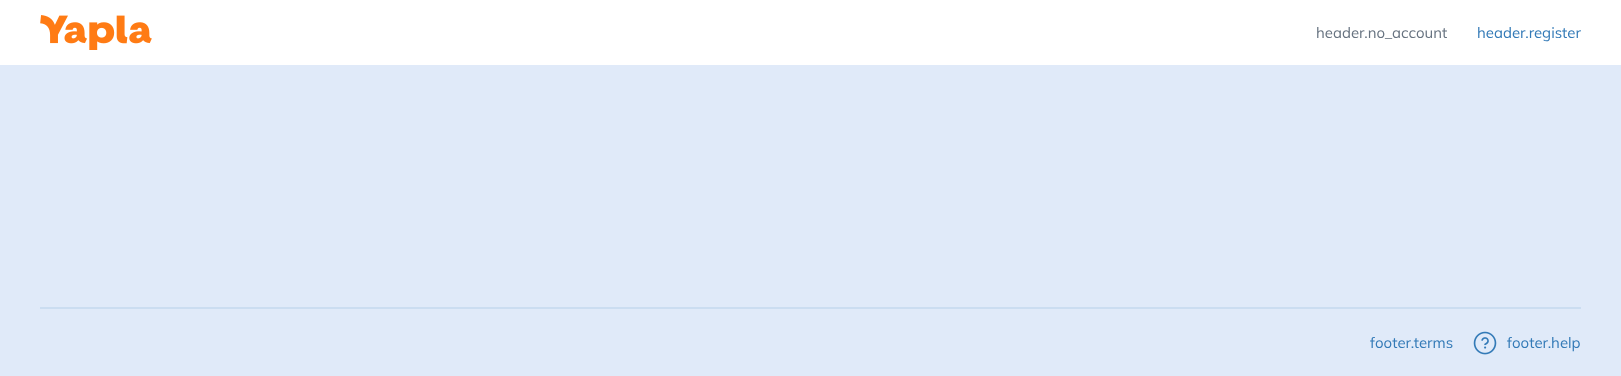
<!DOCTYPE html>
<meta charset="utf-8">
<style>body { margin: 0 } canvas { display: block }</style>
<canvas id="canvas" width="1621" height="376"></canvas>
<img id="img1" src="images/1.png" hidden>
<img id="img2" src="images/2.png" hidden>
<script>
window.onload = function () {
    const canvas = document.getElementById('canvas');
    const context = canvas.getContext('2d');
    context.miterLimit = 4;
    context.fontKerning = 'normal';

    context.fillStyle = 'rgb(224, 234, 249)';
    context.fillRect(0, 0, 1621, 376);
    context.fillStyle = 'rgb(255, 255, 255)';
    context.fillRect(0, 0, 1621, 65);
    context.drawImage(document.getElementById('img1'), 40, 15, 112, 35);
    context.fillStyle = 'rgb(203, 221, 241)';
    context.fillRect(40, 307, 1541, 2);
    context.drawImage(document.getElementById('img2'), 1473, 331, 24, 24);
    context.font = '15px Muli';
    context.fillStyle = 'rgb(103, 115, 128)';
    context.fillText('header.no_account', 1316, 38);
    context.fillStyle = 'rgb(51, 122, 183)';
    context.fillText('header.register', 1477, 38);
    context.fillText('footer.terms', 1370, 348);
    context.fillText('footer.help', 1507, 348);
};
</script>
